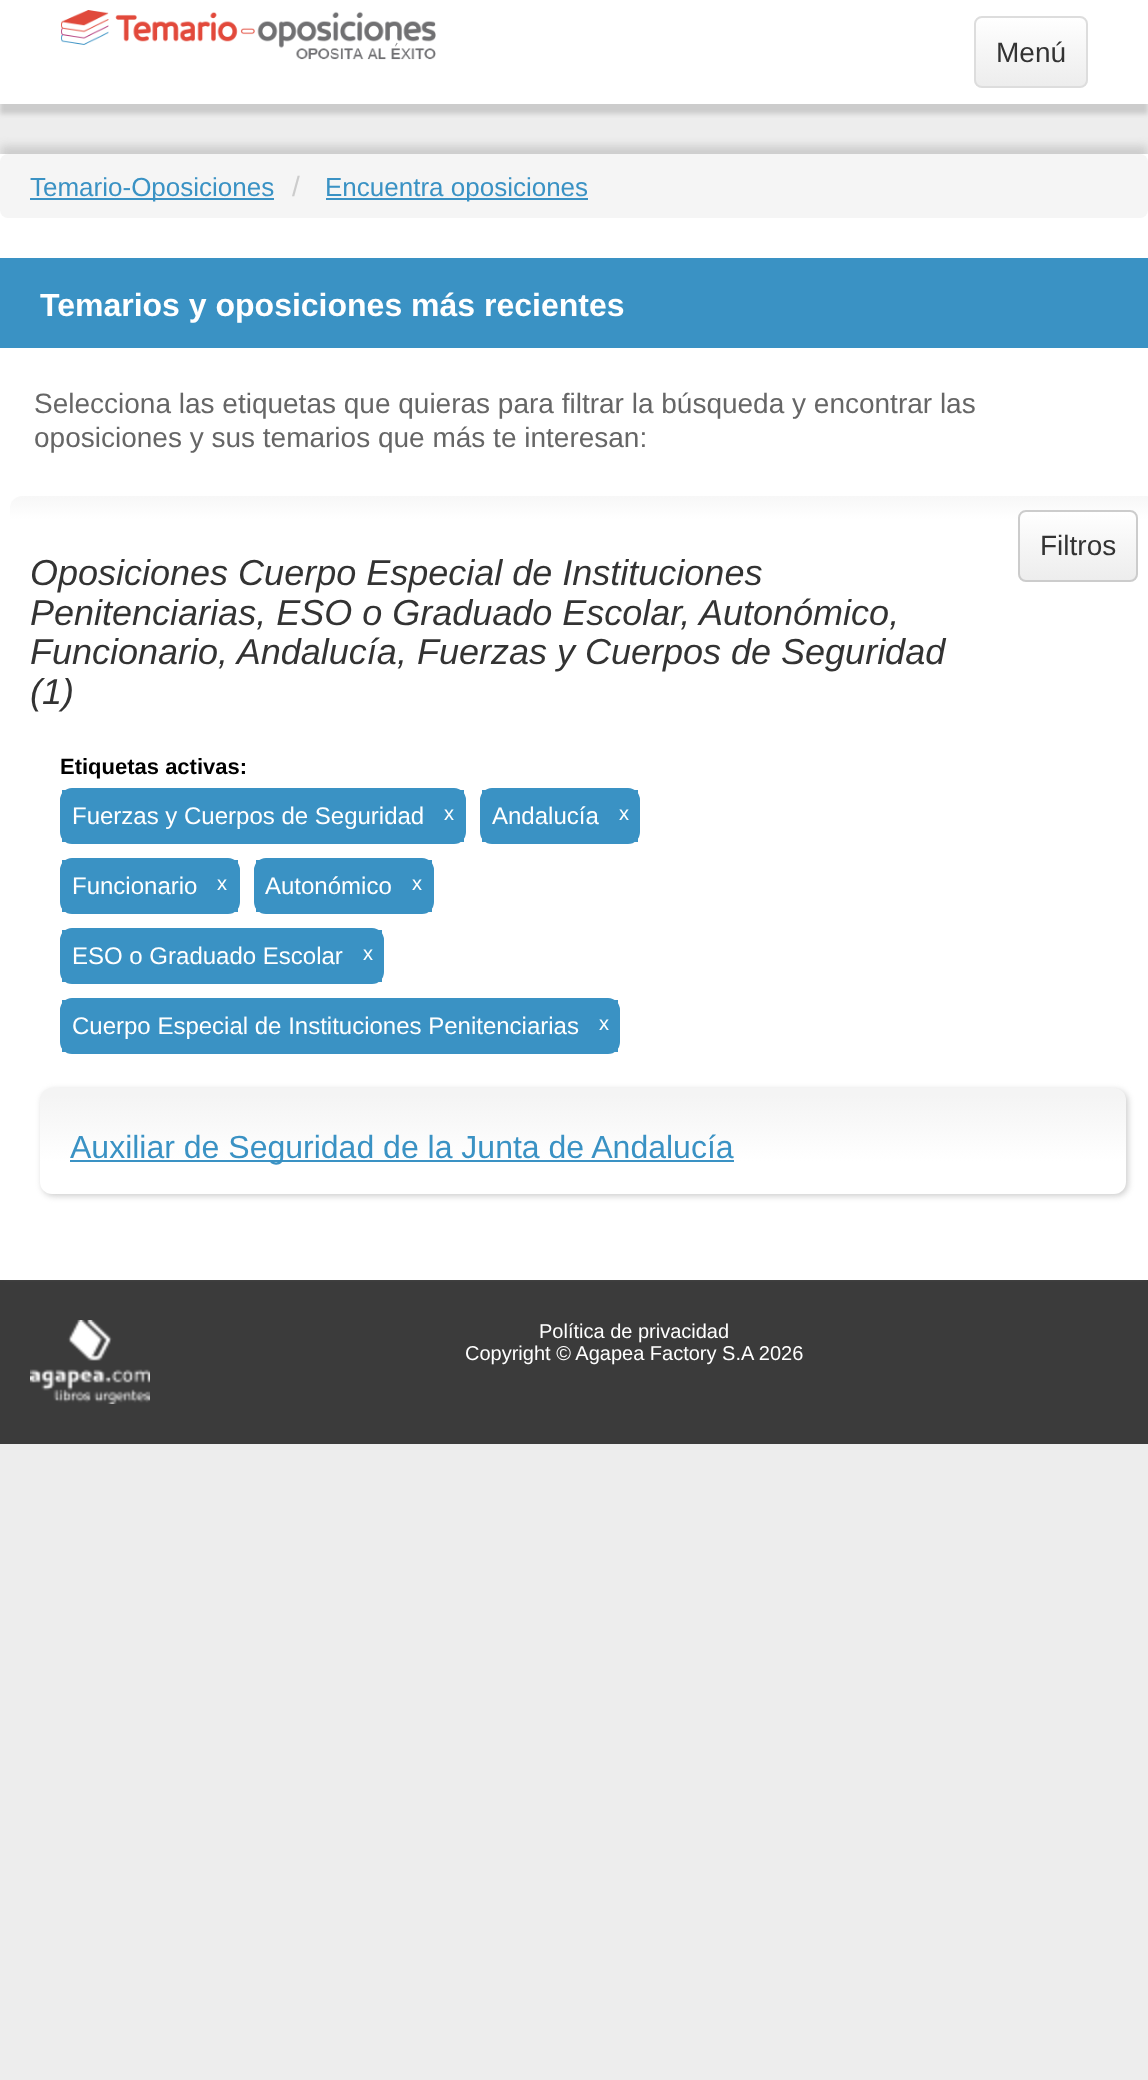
<!DOCTYPE html>
<meta charset="utf-8">
<style>body { margin: 0 } canvas { display: block }</style>
<canvas id="canvas" width="1148" height="2080"></canvas>
<img id="img1" src="images/1.png" hidden>
<img id="img2" src="images/2.png" hidden>
<script>
window.onload = function () {
    const canvas = document.getElementById('canvas');
    const context = canvas.getContext('2d');
    context.miterLimit = 4;
    context.fontKerning = 'normal';
    let gradient;

    context.fillStyle = 'rgb(237, 237, 237)';
    context.fillRect(0, 0, 1148, 2080);
    context.fillStyle = 'rgb(204, 204, 204)';
    context.filter = 'blur(2px)';
    context.beginPath();
    context.rect(0, 10, 1148, 104);
    context.fill();
    context.filter = 'none';
    context.fillStyle = 'rgb(255, 255, 255)';
    context.fillRect(0, 0, 1148, 104);
    context.drawImage(document.getElementById('img1'), 61, 10, 375, 50);
    context.save();
    context.beginPath();
    context.roundRect(974, 16, 114, 72, 8);
    context.clip();
    gradient = context.createLinearGradient(1031, 18, 1031, 86);
    gradient.addColorStop(0, 'rgb(255, 255, 255)');
    gradient.addColorStop(0.47, 'rgb(246, 246, 246)');
    gradient.addColorStop(1, 'rgb(237, 237, 237)');
    context.fillStyle = gradient;
    context.fillRect(974, 18, 114, 68);
    context.restore();
    context.beginPath();
    context.roundRect(975, 17, 112, 70, 7);
    context.strokeStyle = 'rgb(221, 221, 221)';
    context.lineWidth = 2;
    context.stroke();
    context.fillStyle = 'rgb(59, 59, 59)';
    context.fillRect(0, 1280, 1148, 164);
    context.fillStyle = 'rgb(204, 204, 204)';
    context.filter = 'blur(5px)';
    context.beginPath();
    context.rect(0, 146, 1148, 1126);
    context.fill();
    context.filter = 'none';
    context.fillStyle = 'rgb(255, 255, 255)';
    context.fillRect(0, 154, 1148, 1126);
    context.fillStyle = 'rgb(245, 245, 245)';
    context.beginPath();
    context.roundRect(0, 154, 1148, 64, 8);
    context.fill();
    context.fillStyle = 'rgb(58, 146, 196)';
    context.fillRect(30, 198, 244, 2);
    context.fillRect(326, 198, 262, 2);
    context.fillRect(0, 258, 1148, 90);
    gradient = context.createLinearGradient(584, 496, 584, 1270);
    gradient.addColorStop(0, 'rgb(247, 247, 247)');
    gradient.addColorStop(0.03, 'rgb(255, 255, 255)');
    context.fillStyle = gradient;
    context.beginPath();
    context.roundRect(10, 496, 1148, 774, 12);
    context.fill();
    context.save();
    context.beginPath();
    context.roundRect(1018, 510, 120, 72, 8);
    context.clip();
    gradient = context.createLinearGradient(1078, 512, 1078, 580);
    gradient.addColorStop(0, 'rgb(255, 255, 255)');
    gradient.addColorStop(0.47, 'rgb(246, 246, 246)');
    gradient.addColorStop(1, 'rgb(237, 237, 237)');
    context.fillStyle = gradient;
    context.fillRect(1018, 512, 120, 68);
    context.restore();
    context.beginPath();
    context.roundRect(1019, 511, 118, 70, 7);
    context.strokeStyle = 'rgb(204, 204, 204)';
    context.stroke();
    context.beginPath();
    context.roundRect(61, 789, 404, 54, 11);
    context.strokeStyle = 'rgb(58, 146, 196)';
    context.stroke();
    context.fillStyle = 'rgb(58, 146, 196)';
    context.fillRect(62, 790, 402, 52);
    context.beginPath();
    context.roundRect(481, 789, 158, 54, 11);
    context.stroke();
    context.fillRect(482, 790, 156, 52);
    context.beginPath();
    context.roundRect(61, 859, 178, 54, 11);
    context.stroke();
    context.fillRect(62, 860, 176, 52);
    context.beginPath();
    context.roundRect(255, 859, 178, 54, 11);
    context.stroke();
    context.fillRect(256, 860, 176, 52);
    context.beginPath();
    context.roundRect(61, 929, 322, 54, 11);
    context.stroke();
    context.fillRect(62, 930, 320, 52);
    context.beginPath();
    context.roundRect(61, 999, 558, 54, 11);
    context.stroke();
    context.fillRect(62, 1000, 556, 52);
    context.fillStyle = 'rgb(204, 204, 204)';
    context.filter = 'blur(3px)';
    context.beginPath();
    context.roundRect(42, 1090, 1086, 106, 12);
    context.fill();
    context.filter = 'none';
    gradient = context.createLinearGradient(583, 1088, 583, 1194);
    gradient.addColorStop(0.07, 'rgb(244, 244, 244)');
    gradient.addColorStop(0.69, 'rgb(255, 255, 255)');
    context.fillStyle = gradient;
    context.beginPath();
    context.roundRect(40, 1088, 1086, 106, 12);
    context.fill();
    context.fillStyle = 'rgb(58, 146, 196)';
    context.fillRect(70, 1160, 664, 2);
    context.drawImage(document.getElementById('img2'), 30, 1320, 120, 84);
    context.font = '28px Liberation Sans';
    context.fillStyle = 'rgb(51, 51, 51)';
    context.fillText('Menú', 996, 62);
    context.font = '26px Liberation Sans';
    context.fillStyle = 'rgb(58, 146, 196)';
    context.fillText('Temario-Oposiciones', 30, 196);
    context.font = '28px Liberation Sans';
    context.fillStyle = 'rgb(204, 204, 204)';
    context.fillText('/', 292, 196);
    context.font = '26px Liberation Sans';
    context.fillStyle = 'rgb(58, 146, 196)';
    context.fillText('Encuentra oposiciones', 325, 196);
    context.font = 'bold 32px Liberation Sans';
    context.fillStyle = 'rgb(255, 255, 255)';
    context.fillText('Temarios y oposiciones más recientes', 40, 316);
    context.font = '28px Liberation Sans';
    context.fillStyle = 'rgb(102, 102, 102)';
    context.fillText('Selecciona las etiquetas que quieras para filtrar la búsqueda y encontrar las', 34, 413);
    context.fillText('oposiciones y sus temarios que más te interesan:', 34, 447);
    context.fillStyle = 'rgb(51, 51, 51)';
    context.fillText('Filtros', 1040, 555);
    context.font = 'italic 36px Liberation Sans';
    context.fillText('Oposiciones Cuerpo Especial de Instituciones', 30, 585);
    context.fillText('Penitenciarias, ESO o Graduado Escolar, Autonómico,', 30, 625);
    context.fillText('Funcionario, Andalucía, Fuerzas y Cuerpos de Seguridad', 30, 664);
    context.fillText('(1)', 30, 704);
    context.font = 'bold 22px Liberation Sans';
    context.fillStyle = 'rgb(0, 0, 0)';
    context.fillText('Etiquetas activas:', 60, 774);
    context.font = '24px Liberation Sans';
    context.fillStyle = 'rgb(255, 255, 255)';
    context.fillText('Fuerzas y Cuerpos de Seguridad', 72, 824);
    context.font = '20px Liberation Sans';
    context.fillText('x', 444, 820);
    context.font = '24px Liberation Sans';
    context.fillText('Andalucía', 492, 824);
    context.font = '20px Liberation Sans';
    context.fillText('x', 619, 820);
    context.font = '24px Liberation Sans';
    context.fillText('Funcionario', 72, 894);
    context.font = '20px Liberation Sans';
    context.fillText('x', 217, 890);
    context.font = '24px Liberation Sans';
    context.fillText('Autonómico', 265, 894);
    context.font = '20px Liberation Sans';
    context.fillText('x', 412, 890);
    context.font = '24px Liberation Sans';
    context.fillText('ESO o Graduado Escolar', 72, 964);
    context.font = '20px Liberation Sans';
    context.fillText('x', 363, 960);
    context.font = '24px Liberation Sans';
    context.fillText('Cuerpo Especial de Instituciones Penitenciarias', 72, 1034);
    context.font = '20px Liberation Sans';
    context.fillText('x', 599, 1030);
    context.font = '32px Liberation Sans';
    context.fillStyle = 'rgb(58, 146, 196)';
    context.fillText('Auxiliar de Seguridad de la Junta de Andalucía', 70, 1158);
    context.font = '20px Liberation Sans';
    context.fillStyle = 'rgb(255, 255, 255)';
    context.fillText('Política de privacidad', 539, 1338);
    context.fillText('Copyright © Agapea Factory S.A 2026', 465, 1360);
};
</script>
